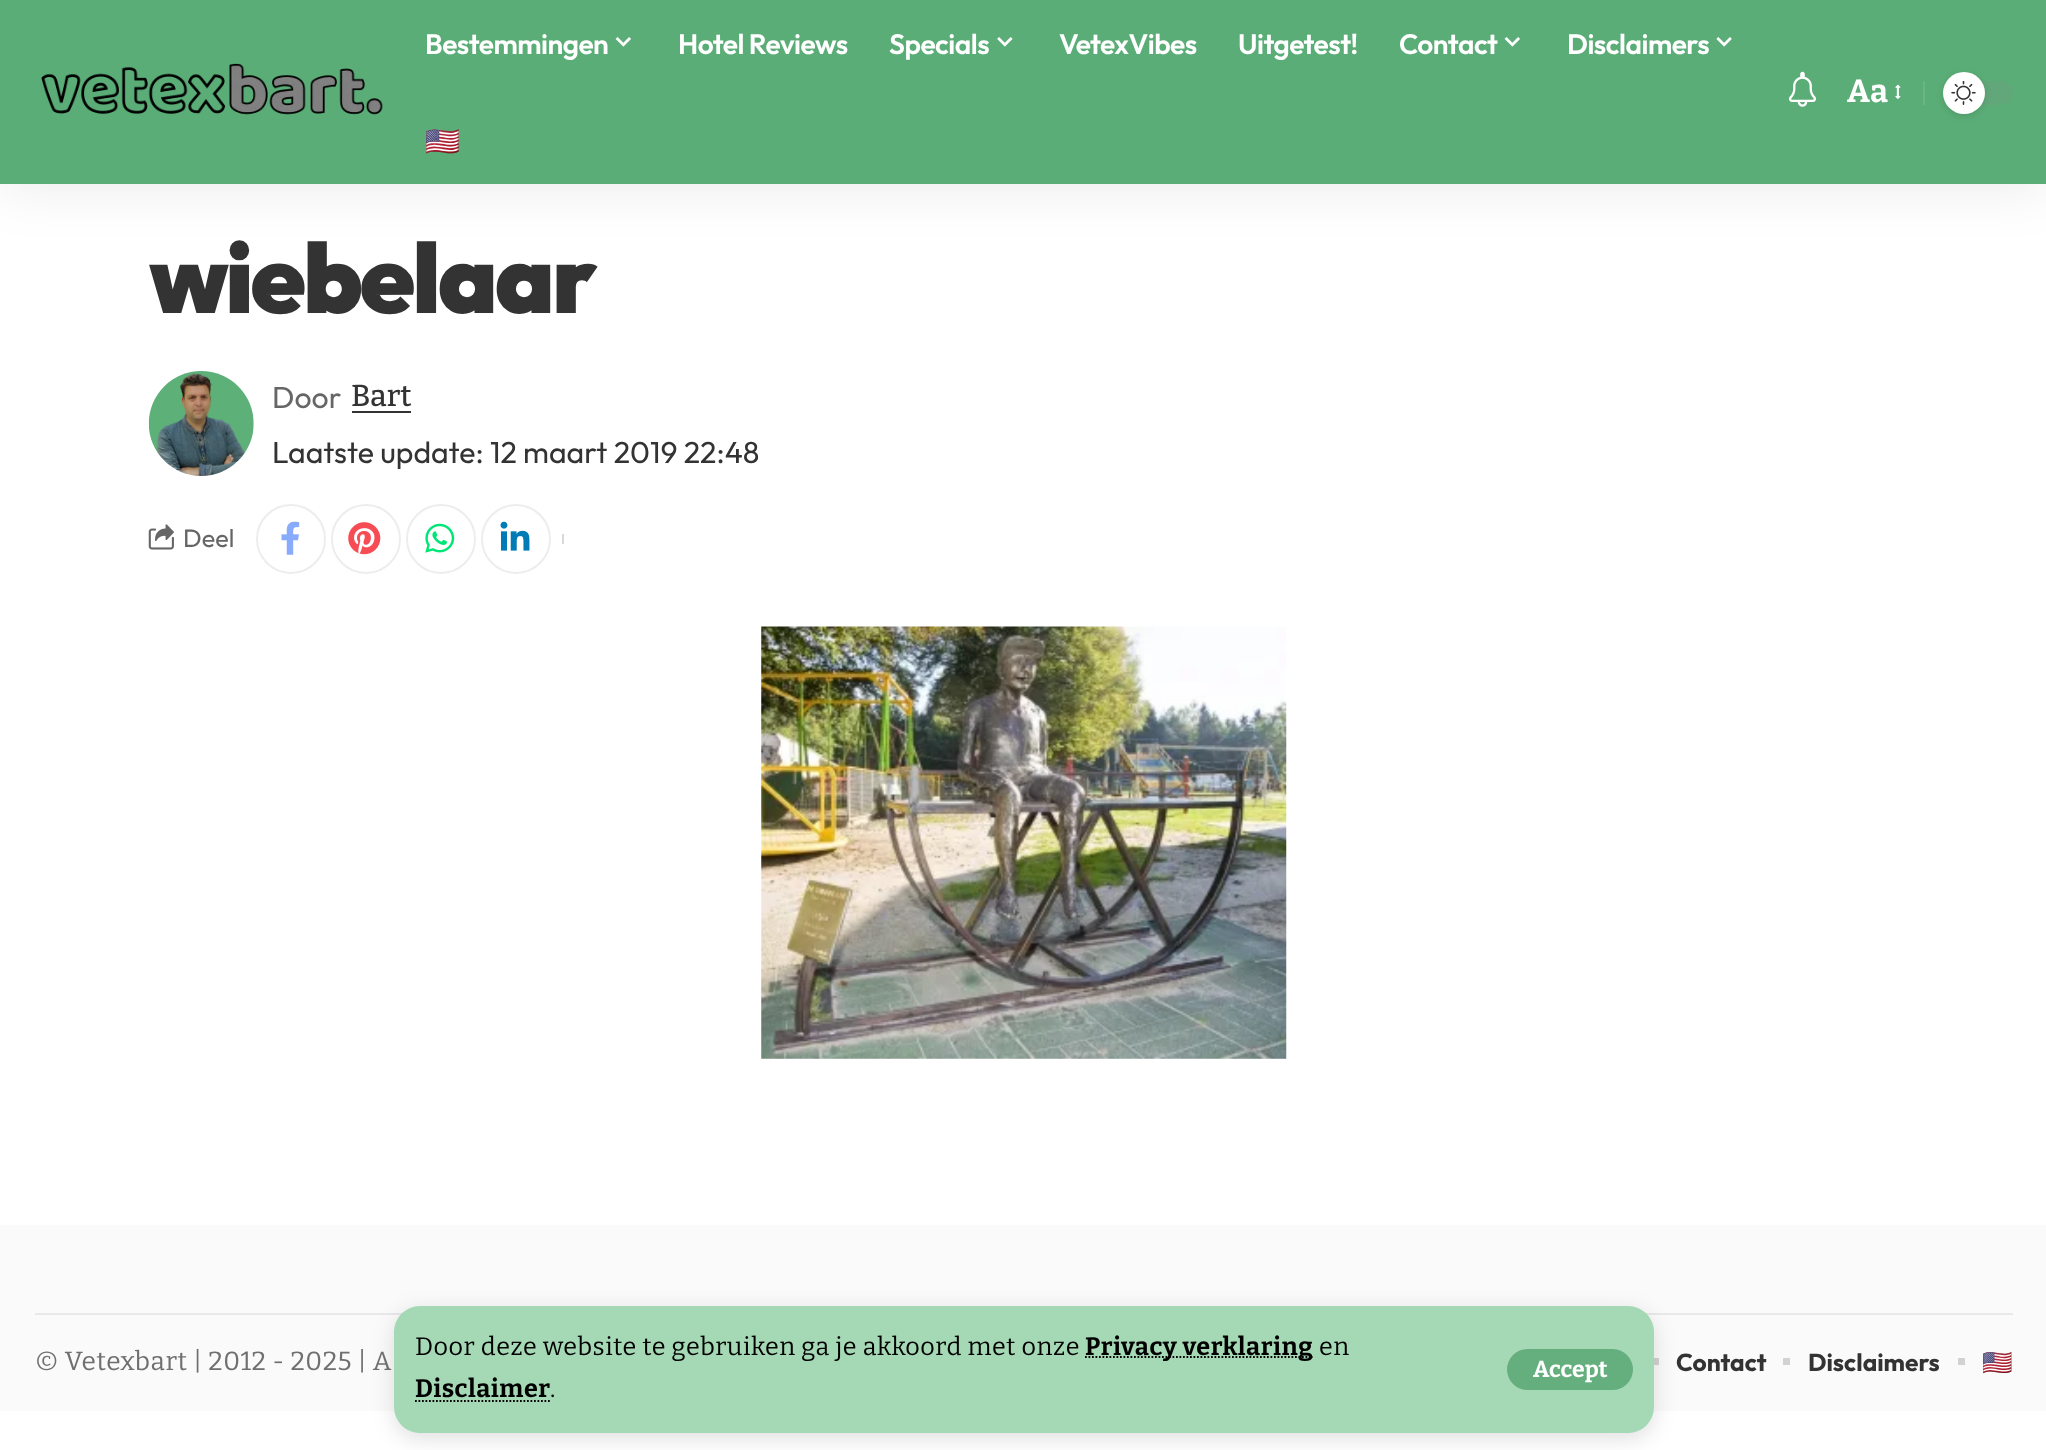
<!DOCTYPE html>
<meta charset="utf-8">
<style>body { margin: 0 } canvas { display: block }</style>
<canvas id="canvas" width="2046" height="1450"></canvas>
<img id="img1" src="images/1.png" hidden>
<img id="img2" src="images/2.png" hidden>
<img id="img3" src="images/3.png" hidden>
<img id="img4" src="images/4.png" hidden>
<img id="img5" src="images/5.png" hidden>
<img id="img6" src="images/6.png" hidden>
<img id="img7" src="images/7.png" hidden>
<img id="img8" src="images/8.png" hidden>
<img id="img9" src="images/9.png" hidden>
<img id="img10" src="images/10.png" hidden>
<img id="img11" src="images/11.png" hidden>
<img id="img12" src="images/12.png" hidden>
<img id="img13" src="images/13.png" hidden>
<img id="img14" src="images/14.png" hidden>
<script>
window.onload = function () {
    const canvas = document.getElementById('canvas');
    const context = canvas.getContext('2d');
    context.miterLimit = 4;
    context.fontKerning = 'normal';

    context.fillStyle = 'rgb(255, 255, 255)';
    context.fillRect(0, 0, 2046, 1450);
    context.fillStyle = 'rgba(0, 0, 0, 0.07)';
    context.filter = 'blur(26px)';
    context.beginPath();
    context.rect(0, 7, 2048, 184);
    context.fill();
    context.filter = 'none';
    context.fillStyle = 'rgb(91, 173, 119)';
    context.fillRect(0, 0, 2046, 184);
    context.drawImage(document.getElementById('img1'), 41, 63, 342, 52);
    context.drawImage(document.getElementById('img2'), 615, 37, 16, 10);
    context.drawImage(document.getElementById('img3'), 997, 37, 16, 10);
    context.drawImage(document.getElementById('img2'), 1504, 37, 16, 10);
    context.drawImage(document.getElementById('img4'), 1716, 37, 16, 10);
    context.drawImage(document.getElementById('img5'), 1788, 71, 29, 36);
    context.drawImage(document.getElementById('img6'), 1895, 84, 6, 15);
    context.fillStyle = 'rgb(107, 181, 133)';
    context.fillRect(1923, 81, 2, 24);
    context.fillStyle = 'rgb(98, 167, 122)';
    context.beginPath();
    context.roundRect(1943, 81, 70, 24, 12);
    context.fill();
    context.fillStyle = 'rgba(0, 0, 0, 0.12)';
    context.filter = 'blur(3.5px)';
    context.beginPath();
    context.roundRect(1943, 74, 42, 42, 21);
    context.fill();
    context.filter = 'none';
    context.fillStyle = 'rgb(255, 255, 255)';
    context.beginPath();
    context.arc(1964, 93, 21, 0, 2 * Math.PI);
    context.fill();
    context.drawImage(document.getElementById('img7'), 1951, 81, 25, 24);
    context.fillStyle = 'rgb(250, 250, 250)';
    context.fillRect(0, 1225, 2046, 186);
    context.fillStyle = 'rgb(233, 233, 233)';
    context.fillRect(35, 1313, 1978, 2);
    context.fillStyle = 'rgb(210, 210, 210)';
    context.fillRect(1652, 1358, 7, 7);
    context.fillStyle = 'rgba(0, 0, 0, 0.12)';
    context.filter = 'blur(10.5px)';
    context.beginPath();
    context.roundRect(394, 1311, 1260, 128, 26);
    context.fill();
    context.filter = 'none';
    context.fillStyle = 'rgb(165, 216, 181)';
    context.beginPath();
    context.roundRect(394, 1306, 1260, 127, 26);
    context.fill();
    context.beginPath();
    context.moveTo(1085, 1357);
    context.lineTo(1313, 1357);
    context.strokeStyle = 'rgb(0, 0, 0)';
    context.lineWidth = 1.8;
    context.setLineDash([1.75, 1.75]);
    context.stroke();
    context.beginPath();
    context.moveTo(415, 1401);
    context.lineTo(550.5, 1401);
    context.stroke();
    context.fillStyle = 'rgb(101, 174, 125)';
    context.beginPath();
    context.roundRect(1507, 1349, 126, 41, 20.5);
    context.fill();
    context.drawImage(document.getElementById('img8'), 148, 371, 106, 105);
    context.fillStyle = 'rgb(51, 51, 51)';
    context.fillRect(352, 411, 59, 2);
    context.drawImage(document.getElementById('img9'), 148, 524, 26, 26);
    context.beginPath();
    context.arc(291, 539, 34, 0, 2 * Math.PI);
    context.strokeStyle = 'rgb(237, 237, 237)';
    context.lineWidth = 2;
    context.setLineDash([]);
    context.stroke();
    context.drawImage(document.getElementById('img10'), 281, 521, 19, 34);
    context.beginPath();
    context.arc(366, 539, 34, 0, 2 * Math.PI);
    context.stroke();
    context.drawImage(document.getElementById('img11'), 348, 522, 33, 33);
    context.beginPath();
    context.arc(441, 539, 34, 0, 2 * Math.PI);
    context.stroke();
    context.drawImage(document.getElementById('img12'), 425, 523, 30, 30);
    context.beginPath();
    context.arc(516, 539, 34, 0, 2 * Math.PI);
    context.stroke();
    context.drawImage(document.getElementById('img13'), 500, 521, 30, 30);
    context.fillStyle = 'rgb(217, 217, 217)';
    context.fillRect(562, 534, 2, 10);
    context.drawImage(document.getElementById('img14'), 761, 626, 526, 433);
    context.fillStyle = 'rgb(210, 210, 210)';
    context.fillRect(1783, 1358, 7, 7);
    context.fillRect(1958, 1358, 7, 7);
    context.letterSpacing = '-0.5px';
    context.font = '600 28px Outfit';
    context.fillStyle = 'rgb(255, 255, 255)';
    context.fillText('Bestemmingen', 425, 54);
    context.fillText('Hotel Reviews', 678, 54);
    context.fillText('Specials', 889, 54);
    context.fillText('VetexVibes', 1059, 54);
    context.fillText('Uitgetest!', 1238, 54);
    context.fillText('Contact', 1399, 54);
    context.fillText('Disclaimers', 1567, 54);
    context.font = 'bold 28px Noto Color Emoji';
    context.fillText('🇺🇸', 425, 151);
    context.letterSpacing = '0.53px';
    context.font = 'bold 32px Bitter';
    context.fillText('Aa', 1847, 102);
    context.font = '25.2px Bitter';
    context.fillStyle = 'rgb(0, 0, 0)';
    context.fillText('Door deze website te gebruiken ga je akkoord met onze', 415, 1355);
    context.font = 'bold 25.2px Bitter';
    context.fillText('Privacy verklaring', 1085, 1355);
    context.font = '25.2px Bitter';
    context.fillText('en', 1319, 1355);
    context.font = 'bold 25.2px Bitter';
    context.fillText('Disclaimer', 415, 1397);
    context.font = '25.2px Bitter';
    context.fillText('.', 550, 1397);
    context.letterSpacing = '0px';
    context.font = 'bold 23px Bitter';
    context.fillStyle = 'rgb(255, 255, 255)';
    context.fillText('Accept', 1533, 1377);
    context.letterSpacing = '-2.75px';
    context.font = '900 98px Outfit';
    context.fillStyle = 'rgb(51, 51, 51)';
    context.fillText('wiebelaar', 149, 313);
    context.letterSpacing = '0px';
    context.font = '30.25px Outfit';
    context.fillStyle = 'rgb(102, 102, 102)';
    context.fillText('Door', 272, 408);
    context.font = '500 30.25px Bitter';
    context.fillStyle = 'rgb(51, 51, 51)';
    context.fillText('Bart', 351, 406);
    context.font = '30.25px Outfit';
    context.fillText('Laatste update: 12 maart 2019 22:48', 272, 463);
    context.font = '25.2px Outfit';
    context.fillStyle = 'rgb(102, 102, 102)';
    context.fillText('Deel', 183, 547);
    context.letterSpacing = '0.53px';
    context.font = '26.25px Bitter';
    context.fillStyle = 'rgb(111, 111, 111)';
    context.fillText('© Vetexbart | 2012 - 2025 | A', 35, 1370);
    context.letterSpacing = '0px';
    context.font = 'bold 24.5px Outfit';
    context.fillStyle = 'rgb(51, 51, 51)';
    context.fillText('Contact', 1676, 1371);
    context.fillText('Disclaimers', 1808, 1371);
    context.font = 'bold 24.5px Noto Color Emoji';
    context.fillText('🇺🇸', 1982, 1371);
};
</script>
